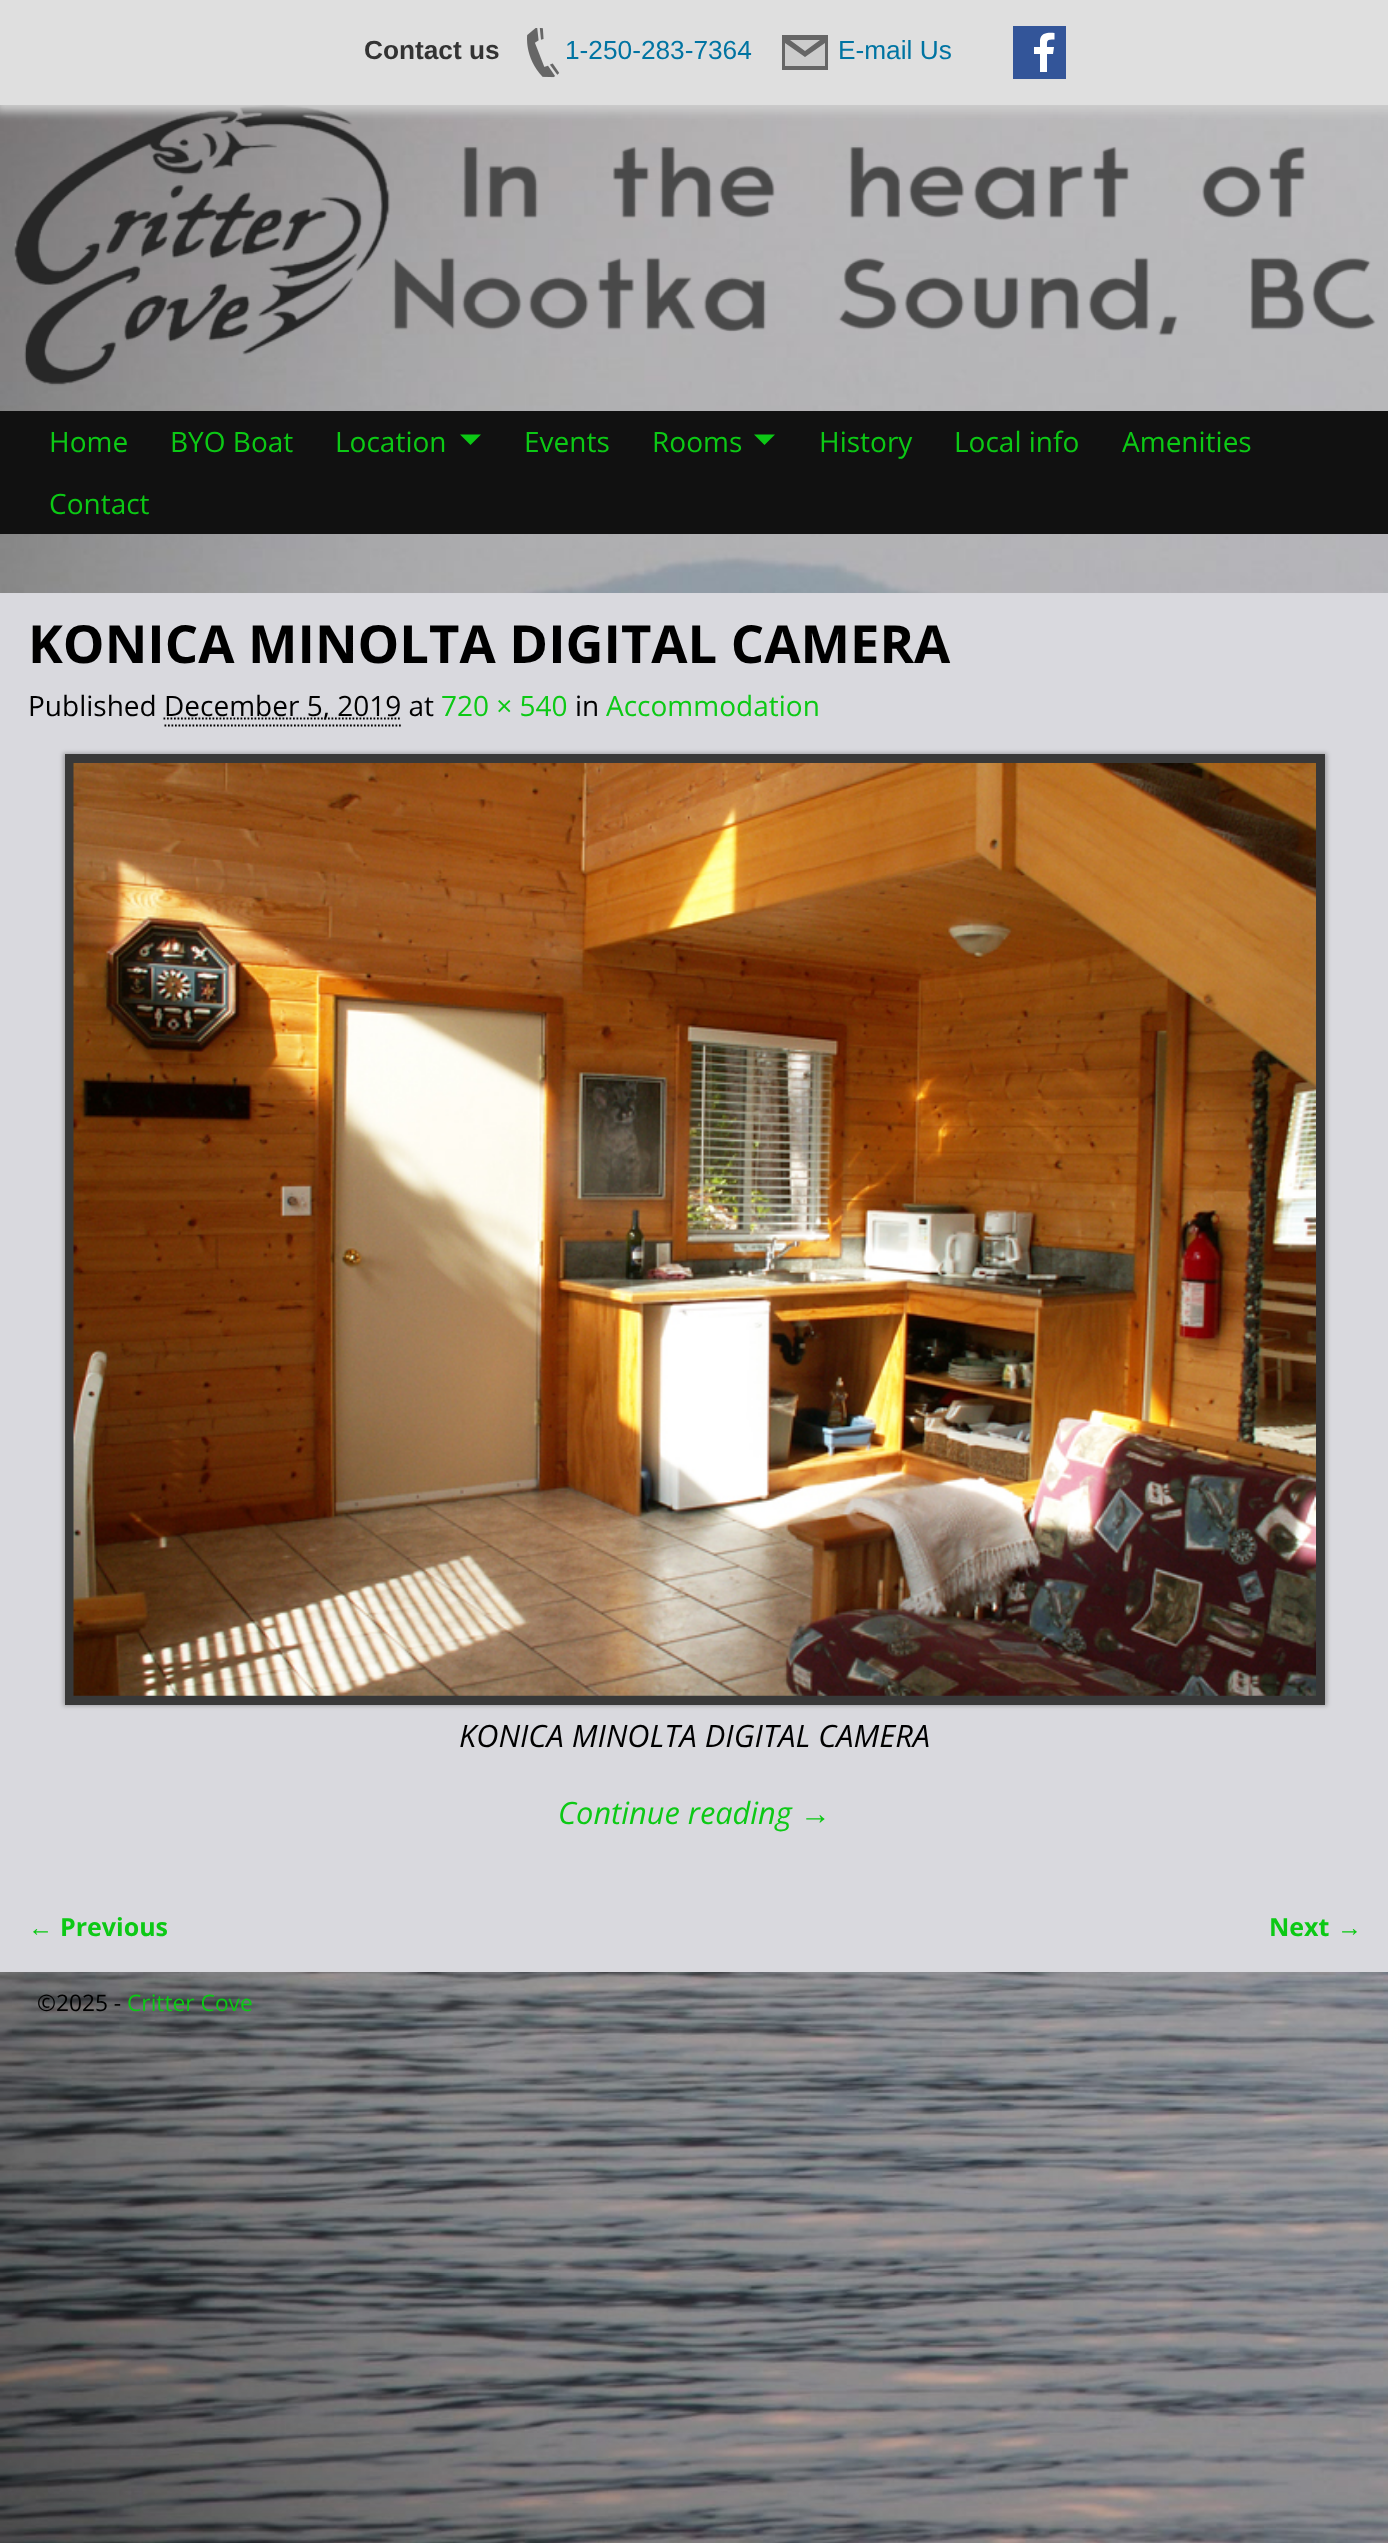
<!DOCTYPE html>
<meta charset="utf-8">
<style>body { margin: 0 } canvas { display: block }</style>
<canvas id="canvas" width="1388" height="2543"></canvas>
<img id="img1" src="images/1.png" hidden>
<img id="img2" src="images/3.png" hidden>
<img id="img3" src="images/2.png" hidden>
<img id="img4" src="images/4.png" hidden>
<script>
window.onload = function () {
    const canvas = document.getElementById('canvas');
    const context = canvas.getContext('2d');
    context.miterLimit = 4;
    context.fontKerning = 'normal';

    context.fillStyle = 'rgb(255, 255, 255)';
    context.fillRect(0, 0, 1388, 2543);
    context.drawImage(document.getElementById('img1'), 0, 105, 1388, 2438);
    context.drawImage(document.getElementById('img2'), 14, 105, 1362, 281);
    context.fillStyle = 'rgb(204, 204, 204)';
    context.filter = 'blur(5px)';
    context.beginPath();
    context.rect(-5, -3, 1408, 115);
    context.fill();
    context.filter = 'none';
    context.fillStyle = 'rgb(223, 223, 223)';
    context.fillRect(0, 0, 1388, 105);
    context.drawImage(document.getElementById('img3'), 527, 28, 33, 50);
    context.fillStyle = 'rgb(51, 85, 153)';
    context.fillRect(1013, 26, 53, 53);
    context.fillStyle = 'rgb(204, 204, 204)';
    context.fillRect(785, 40, 40, 26);
    context.fillStyle = 'rgb(102, 102, 102)';
    context.beginPath();
    context.moveTo(782, 35);
    context.lineTo(782, 70);
    context.lineTo(828, 70);
    context.lineTo(828, 35);
    context.closePath();
    context.moveTo(820, 40);
    context.lineTo(805, 51);
    context.lineTo(790, 40);
    context.closePath();
    context.moveTo(825, 66);
    context.lineTo(785, 66);
    context.lineTo(785, 43);
    context.lineTo(805, 57);
    context.lineTo(825, 43);
    context.closePath();
    context.fill();
    context.fillStyle = 'rgb(255, 255, 255)';
    context.beginPath();
    context.moveTo(1047, 72);
    context.lineTo(1047, 54);
    context.lineTo(1053, 54);
    context.lineTo(1054, 47);
    context.lineTo(1047, 47);
    context.bezierCurveTo(1047, 40, 1046.5, 39.5, 1054.5, 39.5);
    context.lineTo(1054.5, 33);
    context.bezierCurveTo(1048.5, 32.5, 1041, 32.5, 1040, 40);
    context.lineTo(1040, 47);
    context.lineTo(1034, 47);
    context.lineTo(1034, 54);
    context.lineTo(1040, 54);
    context.lineTo(1040, 72);
    context.closePath();
    context.fill();
    context.fillStyle = 'rgb(17, 17, 17)';
    context.fillRect(0, 411, 1388, 123);
    context.fillStyle = 'rgb(12, 201, 21)';
    context.beginPath();
    context.moveTo(460, 434.5);
    context.lineTo(481, 434.5);
    context.lineTo(470.5, 445);
    context.closePath();
    context.fill();
    context.beginPath();
    context.moveTo(754, 434.5);
    context.lineTo(775, 434.5);
    context.lineTo(764.5, 445);
    context.closePath();
    context.fill();
    context.fillStyle = 'rgb(217, 217, 222)';
    context.fillRect(0, 593, 1388, 1379);
    context.beginPath();
    context.moveTo(164.5, 725.5);
    context.lineTo(401, 725.5);
    context.strokeStyle = 'rgb(0, 0, 0)';
    context.lineWidth = 1.8;
    context.setLineDash([1.75, 1.75]);
    context.stroke();
    context.beginPath();
    context.moveTo(163.5, 718.5);
    context.lineTo(401, 718.5);
    context.stroke();
    context.fillStyle = 'rgba(0, 0, 0, 0.25)';
    context.filter = 'blur(2px)';
    context.beginPath();
    context.rect(63, 753, 1264, 953);
    context.fill();
    context.filter = 'none';
    context.fillStyle = 'rgb(56, 56, 56)';
    context.fillRect(65, 754, 1260, 951);
    context.drawImage(document.getElementById('img4'), 73, 763, 1243, 933);
    context.font = 'bold 26.25px Liberation Sans';
    context.fillStyle = 'rgb(51, 51, 51)';
    context.fillText('Contact us', 364, 59);
    context.font = '26.25px Liberation Sans';
    context.fillStyle = 'rgb(0, 116, 162)';
    context.fillText('1-250-283-7364', 565, 59);
    context.fillText('E-mail Us', 838, 59);
    context.font = '28px Open Sans';
    context.fillStyle = 'rgb(12, 201, 21)';
    context.fillText('Home', 49, 452);
    context.fillText('BYO Boat', 170, 452);
    context.fillText('Location', 335, 452);
    context.fillText('Events', 524, 452);
    context.fillText('Rooms', 652, 452);
    context.fillText('History', 819, 452);
    context.fillText('Local info', 954, 452);
    context.fillText('Amenities', 1122, 452);
    context.fillText('Contact', 49, 514);
    context.font = 'bold 52.5px Open Sans';
    context.fillStyle = 'rgb(0, 0, 0)';
    context.fillText('KONICA MINOLTA DIGITAL CAMERA', 28, 663);
    context.font = '28px Open Sans';
    context.fillText('Published', 28, 716);
    context.fillText('December 5, 2019 at', 164, 716);
    context.fillStyle = 'rgb(12, 201, 21)';
    context.fillText('720 × 540', 441, 716);
    context.fillStyle = 'rgb(0, 0, 0)';
    context.fillText('in', 575, 716);
    context.fillStyle = 'rgb(12, 201, 21)';
    context.fillText('Accommodation', 606, 716);
    context.font = 'italic 30.75px Open Sans';
    context.fillStyle = 'rgb(0, 0, 0)';
    context.fillText('KONICA MINOLTA DIGITAL CAMERA', 459, 1747);
    context.fillStyle = 'rgb(12, 201, 21)';
    context.fillText('Continue reading', 558, 1824);
    context.font = 'italic 30.75px Liberation Sans';
    context.fillText('→', 800, 1824);
    context.font = 'bold 25px Liberation Sans';
    context.fillText('←', 28, 1936);
    context.font = 'bold 25px Open Sans';
    context.fillText('Previous', 60, 1936);
    context.fillText('Next', 1269, 1936);
    context.font = 'bold 25px Liberation Sans';
    context.fillText('→', 1337, 1936);
    context.font = '22.75px Open Sans';
    context.fillStyle = 'rgb(0, 0, 0)';
    context.fillText('©2025 -', 37, 2011);
    context.fillStyle = 'rgb(12, 201, 21)';
    context.fillText('Critter Cove', 127, 2011);
};
</script>
